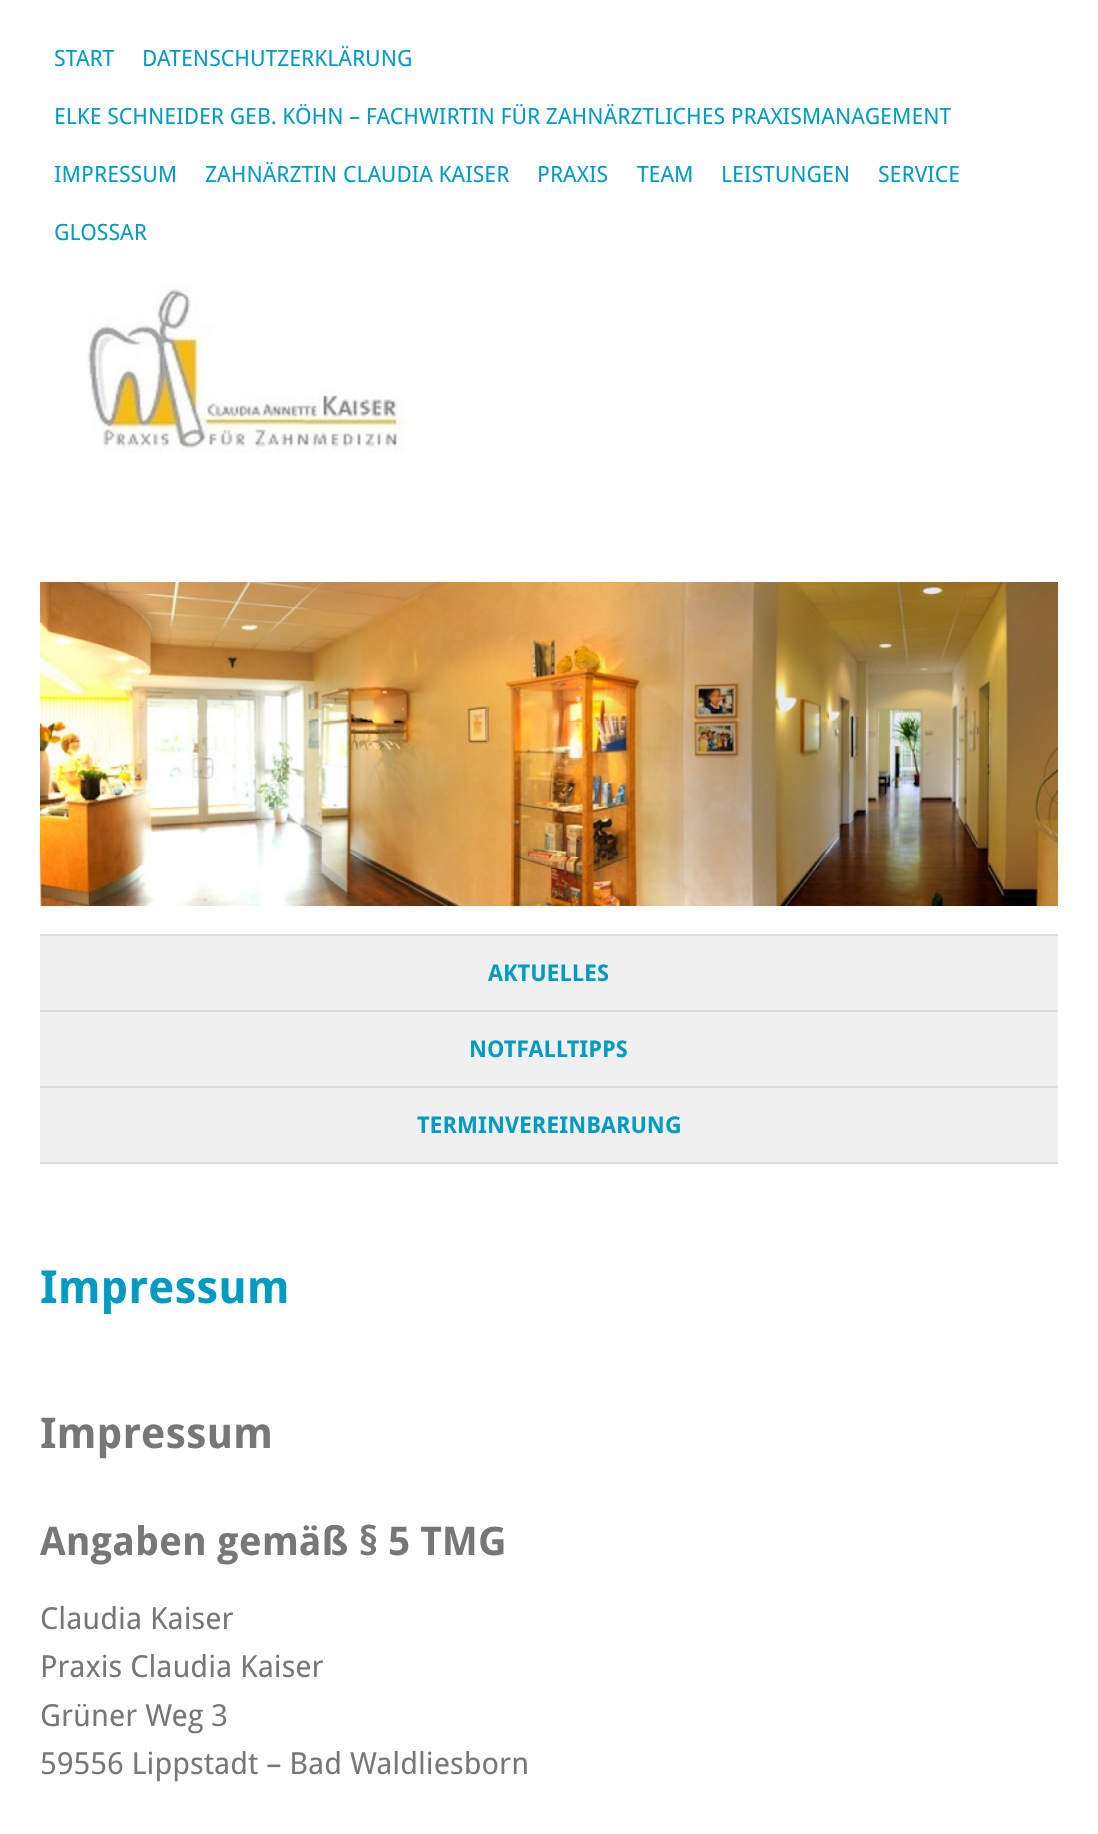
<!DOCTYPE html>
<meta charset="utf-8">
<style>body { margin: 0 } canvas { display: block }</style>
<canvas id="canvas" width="1098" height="1834"></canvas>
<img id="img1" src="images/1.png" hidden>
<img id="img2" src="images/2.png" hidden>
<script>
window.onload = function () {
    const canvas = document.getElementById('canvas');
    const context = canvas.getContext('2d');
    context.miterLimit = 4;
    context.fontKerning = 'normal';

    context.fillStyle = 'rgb(255, 255, 255)';
    context.fillRect(0, 0, 1098, 1834);
    context.drawImage(document.getElementById('img1'), 87, 286, 330, 168);
    context.drawImage(document.getElementById('img2'), 40, 582, 1018, 324);
    context.fillStyle = 'rgb(221, 221, 221)';
    context.fillRect(40, 934, 1018, 2);
    context.fillStyle = 'rgb(240, 240, 240)';
    context.fillRect(40, 936, 1018, 74);
    context.fillStyle = 'rgb(221, 221, 221)';
    context.fillRect(40, 1010, 1018, 2);
    context.fillStyle = 'rgb(240, 240, 240)';
    context.fillRect(40, 1012, 1018, 74);
    context.fillStyle = 'rgb(221, 221, 221)';
    context.fillRect(40, 1086, 1018, 2);
    context.fillStyle = 'rgb(240, 240, 240)';
    context.fillRect(40, 1088, 1018, 74);
    context.fillStyle = 'rgb(221, 221, 221)';
    context.fillRect(40, 1162, 1018, 2);
    context.font = '22.4px Droid Sans';
    context.fillStyle = 'rgb(0, 155, 194)';
    context.fillText('START', 54, 66);
    context.fillText('DATENSCHUTZERKLÄRUNG', 142, 66);
    context.wordSpacing = '-0.25px';
    context.fillText('ELKE SCHNEIDER GEB. KÖHN – FACHWIRTIN FÜR ZAHNÄRZTLICHES PRAXISMANAGEMENT', 54, 124);
    context.wordSpacing = '0px';
    context.fillText('IMPRESSUM', 54, 182);
    context.fillText('ZAHNÄRZTIN CLAUDIA KAISER', 205, 182);
    context.fillText('PRAXIS', 537, 182);
    context.fillText('TEAM', 637, 182);
    context.fillText('LEISTUNGEN', 721, 182);
    context.fillText('SERVICE', 878, 182);
    context.fillText('GLOSSAR', 54, 240);
    context.font = 'bold 23px Droid Sans';
    context.fillText('AKTUELLES', 488, 981);
    context.fillText('NOTFALLTIPPS', 469, 1057);
    context.fillText('TERMINVEREINBARUNG', 417, 1133);
    context.font = 'bold 45.5px Droid Sans';
    context.fillText('Impressum', 40, 1303);
    context.font = 'bold 42.5px Droid Sans';
    context.fillStyle = 'rgb(119, 119, 119)';
    context.fillText('Impressum', 40, 1448);
    context.font = 'bold 39.5px Droid Sans';
    context.fillText('Angaben gemäß § 5 TMG', 40, 1555);
    context.font = '30.4px Droid Sans';
    context.fillText('Claudia Kaiser', 40, 1629);
    context.fillText('Praxis Claudia Kaiser', 40, 1677);
    context.fillText('Grüner Weg 3', 40, 1726);
    context.fillText('59556 Lippstadt – Bad Waldliesborn', 40, 1774);
};
</script>
